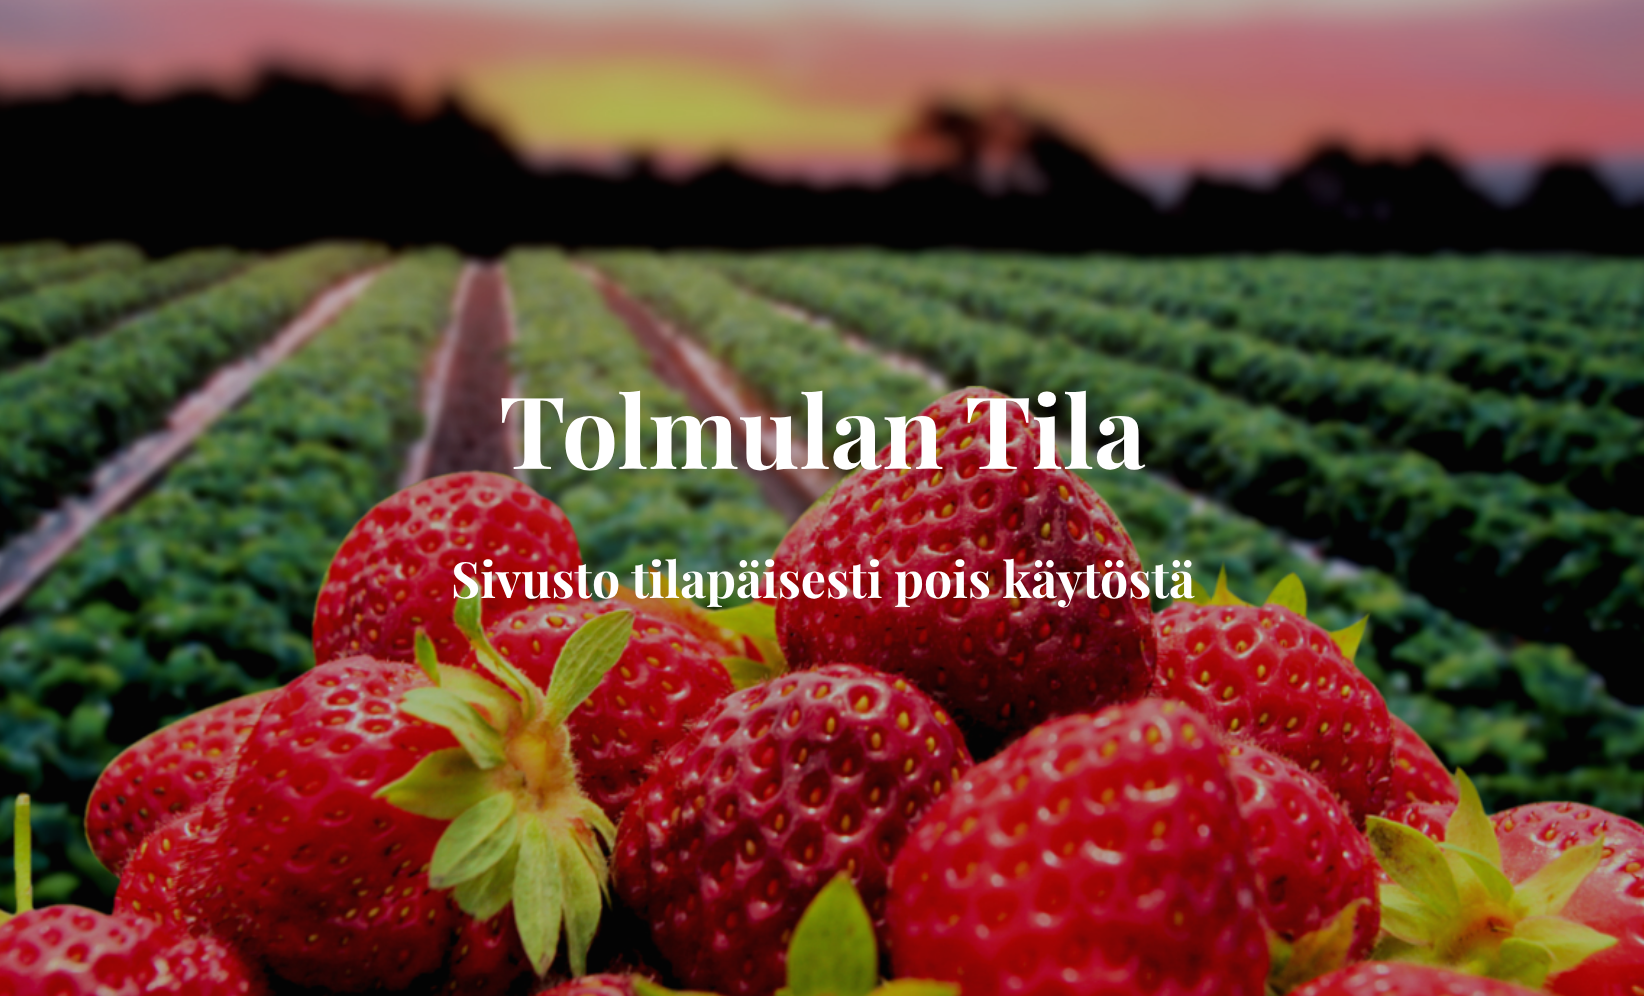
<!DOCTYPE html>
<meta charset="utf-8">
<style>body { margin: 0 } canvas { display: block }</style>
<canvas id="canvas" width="1644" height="996"></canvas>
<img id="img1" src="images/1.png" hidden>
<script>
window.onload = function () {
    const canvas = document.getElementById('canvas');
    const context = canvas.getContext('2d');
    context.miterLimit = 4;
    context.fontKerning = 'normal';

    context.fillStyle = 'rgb(255, 255, 255)';
    context.fillRect(0, 0, 1644, 996);
    context.drawImage(document.getElementById('img1'), 0, 0, 1644, 996);
    context.font = 'bold 100px Playfair Display';
    context.fillText('Tolmulan Tila', 499, 469);
    context.font = 'bold 50px Playfair Display';
    context.fillText('Sivusto tilapäisesti pois käytöstä', 451, 598);
};
</script>
